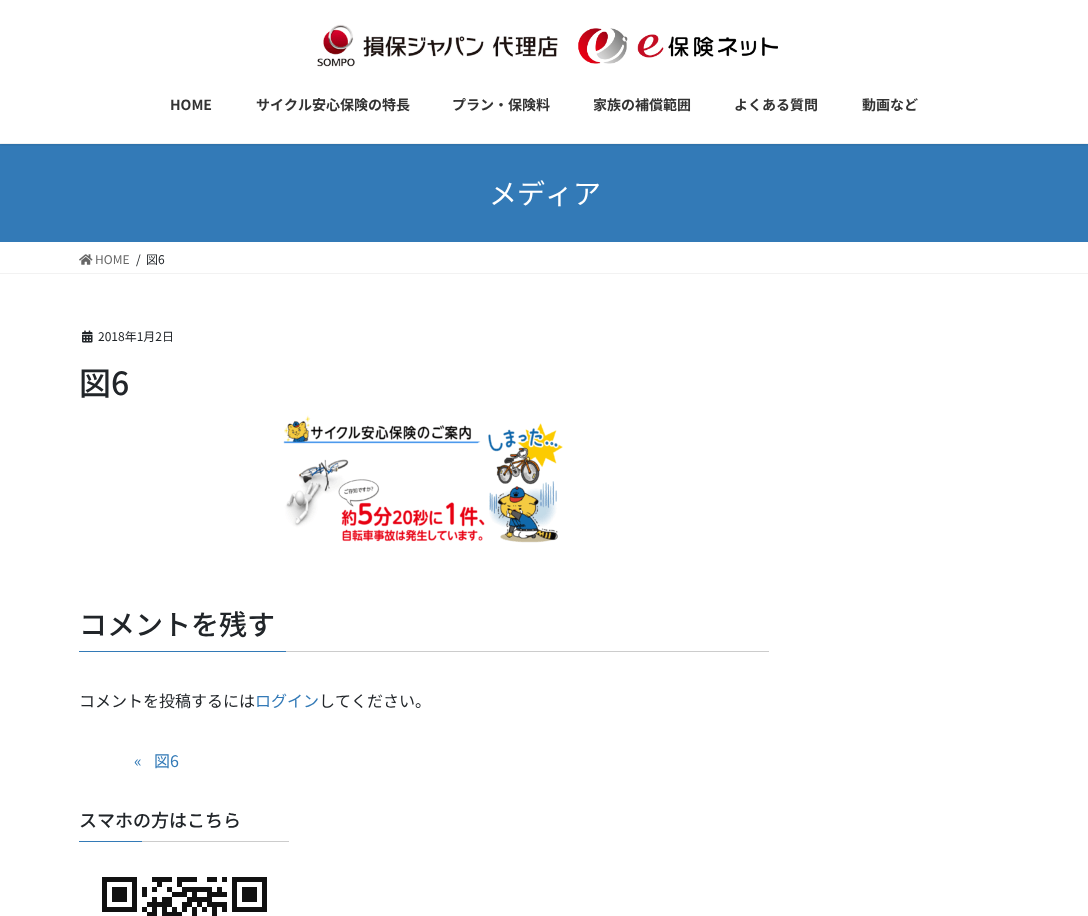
<!DOCTYPE html>
<meta charset="utf-8">
<style>body { margin: 0 } canvas { display: block }</style>
<canvas id="canvas" width="1088" height="916"></canvas>
<img id="img1" src="images/1.png" hidden>
<img id="img2" src="images/2.png" hidden>
<img id="img3" src="images/3.png" hidden>
<img id="img4" src="images/4.png" hidden>
<img id="img5" src="images/5.png" hidden>
<script>
window.onload = function () {
    const canvas = document.getElementById('canvas');
    const context = canvas.getContext('2d');
    context.miterLimit = 4;
    context.fontKerning = 'normal';

    context.fillStyle = 'rgb(255, 255, 255)';
    context.fillRect(0, 0, 1088, 916);
    context.fillStyle = 'rgb(51, 122, 183)';
    context.fillRect(0, 144, 1088, 98);
    context.save();
    context.beginPath();
    context.rect(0, 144, 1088, 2);
    context.clip();
    context.fillStyle = 'rgba(0, 0, 0, 0.1)';
    context.filter = 'blur(1.5px)';
    context.beginPath();
    context.rect(0, 1, 1088, 144);
    context.fill();
    context.filter = 'none';
    context.restore();
    context.fillStyle = 'rgb(242, 242, 242)';
    context.fillRect(0, 143, 1088, 1);
    context.drawImage(document.getElementById('img1'), 317, 24, 461, 43);
    context.fillRect(0, 273, 1088, 1);
    context.drawImage(document.getElementById('img2'), 79, 254, 14, 11);
    context.drawImage(document.getElementById('img3'), 82, 330, 11, 13);
    context.drawImage(document.getElementById('img4'), 283, 415, 280, 128);
    context.fillStyle = 'rgb(204, 204, 204)';
    context.fillRect(286, 651, 483, 1);
    context.fillStyle = 'rgb(51, 122, 183)';
    context.fillRect(79, 651, 207, 1);
    context.fillStyle = 'rgb(204, 204, 204)';
    context.fillRect(142, 841, 147, 1);
    context.fillStyle = 'rgb(51, 122, 183)';
    context.fillRect(79, 841, 63, 1);
    context.drawImage(document.getElementById('img5'), 102, 877, 165, 39);
    context.font = 'bold 14px Noto Sans JP';
    context.fillStyle = 'rgb(51, 51, 51)';
    context.fillText('HOME', 170, 110);
    context.fillText('サイクル安心保険の特長', 256, 110);
    context.fillText('プラン・保険料', 452, 110);
    context.fillText('家族の補償範囲', 593, 110);
    context.fillText('よくある質問', 734, 110);
    context.fillText('動画など', 862, 110);
    context.font = '28px Noto Sans JP';
    context.fillStyle = 'rgb(255, 255, 255)';
    context.fillText('メディア', 489, 204);
    context.font = '12px Noto Sans JP';
    context.fillStyle = 'rgb(102, 102, 102)';
    context.fillText('HOME', 95, 264);
    context.fillStyle = 'rgb(33, 37, 41)';
    context.fillText('/', 136, 264);
    context.fillText('図6', 146, 264);
    context.fillText('2018年1月2日', 98, 341);
    context.font = '500 32px Noto Sans JP';
    context.fillText('図6', 79, 395);
    context.font = '500 28px Noto Sans JP';
    context.fillText('コメントを残す', 79, 635);
    context.font = '16px Noto Sans JP';
    context.fillText('コメントを投稿するには', 79, 707);
    context.fillStyle = 'rgb(51, 122, 183)';
    context.fillText('ログイン', 255, 707);
    context.fillStyle = 'rgb(33, 37, 41)';
    context.fillText('してください。', 319, 707);
    context.fillStyle = 'rgb(51, 122, 183)';
    context.fillText('«', 134, 767);
    context.fillText('図6', 154, 767);
    context.font = '500 18px Noto Sans JP';
    context.fillStyle = 'rgb(33, 37, 41)';
    context.fillText('スマホの方はこちら', 79, 827);
};
</script>
